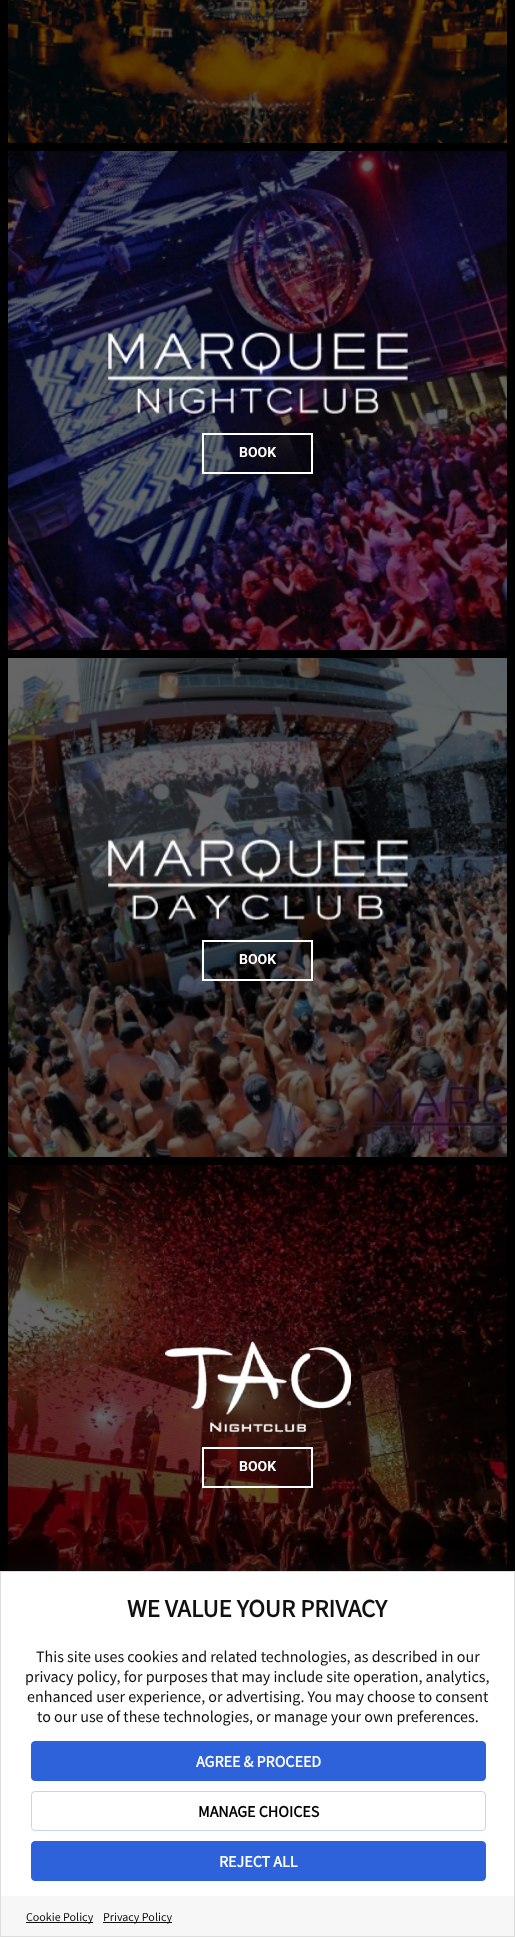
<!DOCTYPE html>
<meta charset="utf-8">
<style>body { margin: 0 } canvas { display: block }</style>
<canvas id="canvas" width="515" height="1937"></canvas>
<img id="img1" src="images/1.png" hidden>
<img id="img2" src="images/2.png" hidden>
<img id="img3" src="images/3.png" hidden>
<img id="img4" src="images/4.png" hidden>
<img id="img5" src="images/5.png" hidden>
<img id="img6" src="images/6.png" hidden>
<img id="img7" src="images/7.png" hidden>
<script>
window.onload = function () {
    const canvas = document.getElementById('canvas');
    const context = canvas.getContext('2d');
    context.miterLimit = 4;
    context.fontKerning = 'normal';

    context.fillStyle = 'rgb(0, 0, 0)';
    context.fillRect(0, 0, 515, 1937);
    context.drawImage(document.getElementById('img1'), 8, 0, 499, 143);
    context.drawImage(document.getElementById('img2'), 8, 151, 499, 499);
    context.drawImage(document.getElementById('img3'), 108, 332, 300, 82);
    context.strokeStyle = 'rgb(255, 255, 255)';
    context.lineWidth = 2;
    context.strokeRect(203, 434, 109, 39);
    context.drawImage(document.getElementById('img4'), 8, 658, 499, 499);
    context.drawImage(document.getElementById('img5'), 108, 839, 300, 81);
    context.strokeRect(203, 941, 109, 39);
    context.drawImage(document.getElementById('img6'), 8, 1165, 499, 406);
    context.drawImage(document.getElementById('img7'), 165, 1341, 186, 91);
    context.strokeRect(203, 1448, 109, 39);
    context.fillStyle = 'rgb(17, 17, 17)';
    context.filter = 'blur(15px)';
    context.beginPath();
    context.rect(0, 1576, 515, 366);
    context.fill();
    context.filter = 'none';
    context.fillStyle = 'rgb(255, 255, 255)';
    context.fillRect(1, 1572, 513, 324);
    context.strokeStyle = 'rgb(221, 221, 221)';
    context.lineWidth = 1;
    context.strokeRect(0.5, 1571.5, 514, 365);
    context.fillStyle = 'rgb(46, 98, 219)';
    context.beginPath();
    context.roundRect(31.5, 1741.5, 454, 39, 3.5);
    context.fill();
    context.strokeStyle = 'rgb(46, 98, 219)';
    context.stroke();
    context.beginPath();
    context.roundRect(31.5, 1791.5, 454, 39, 3.5);
    context.strokeStyle = 'rgb(199, 213, 245)';
    context.stroke();
    context.beginPath();
    context.roundRect(31.5, 1841.5, 454, 39, 3.5);
    context.fill();
    context.strokeStyle = 'rgb(46, 98, 219)';
    context.stroke();
    context.fillStyle = 'rgb(247, 247, 247)';
    context.fillRect(1, 1896, 513, 40);
    context.fillStyle = 'rgb(17, 17, 17)';
    context.fillRect(26, 1922, 67, 1);
    context.fillRect(103, 1922, 69, 1);
    context.font = 'bold 14px Roboto';
    context.fillStyle = 'rgb(255, 255, 255)';
    context.fillText('BOOK', 239, 457);
    context.fillText('BOOK', 239, 964);
    context.fillText('BOOK', 239, 1471);
    context.font = 'bold 25px Source Sans Pro';
    context.fillStyle = 'rgb(17, 17, 17)';
    context.fillText('WE VALUE YOUR PRIVACY', 127, 1617);
    context.font = '16px Source Sans Pro';
    context.fillText('This site uses cookies and related technologies, as described in our', 36, 1662);
    context.fillText('privacy policy, for purposes that may include site operation, analytics,', 25, 1682);
    context.fillText('enhanced user experience, or advertising. You may choose to consent', 27, 1702);
    context.fillText('to our use of these technologies, or manage your own preferences.', 37, 1722);
    context.font = 'bold 16px Source Sans Pro';
    context.fillStyle = 'rgb(255, 255, 255)';
    context.fillText('AGREE & PROCEED', 196, 1767);
    context.fillStyle = 'rgb(0, 0, 0)';
    context.fillText('MANAGE CHOICES', 198, 1817);
    context.fillStyle = 'rgb(255, 255, 255)';
    context.fillText('REJECT ALL', 219, 1867);
    context.font = '12px Source Sans Pro';
    context.fillStyle = 'rgb(17, 17, 17)';
    context.fillText('Cookie Policy', 26, 1921);
    context.fillText('Privacy Policy', 103, 1921);
};
</script>
